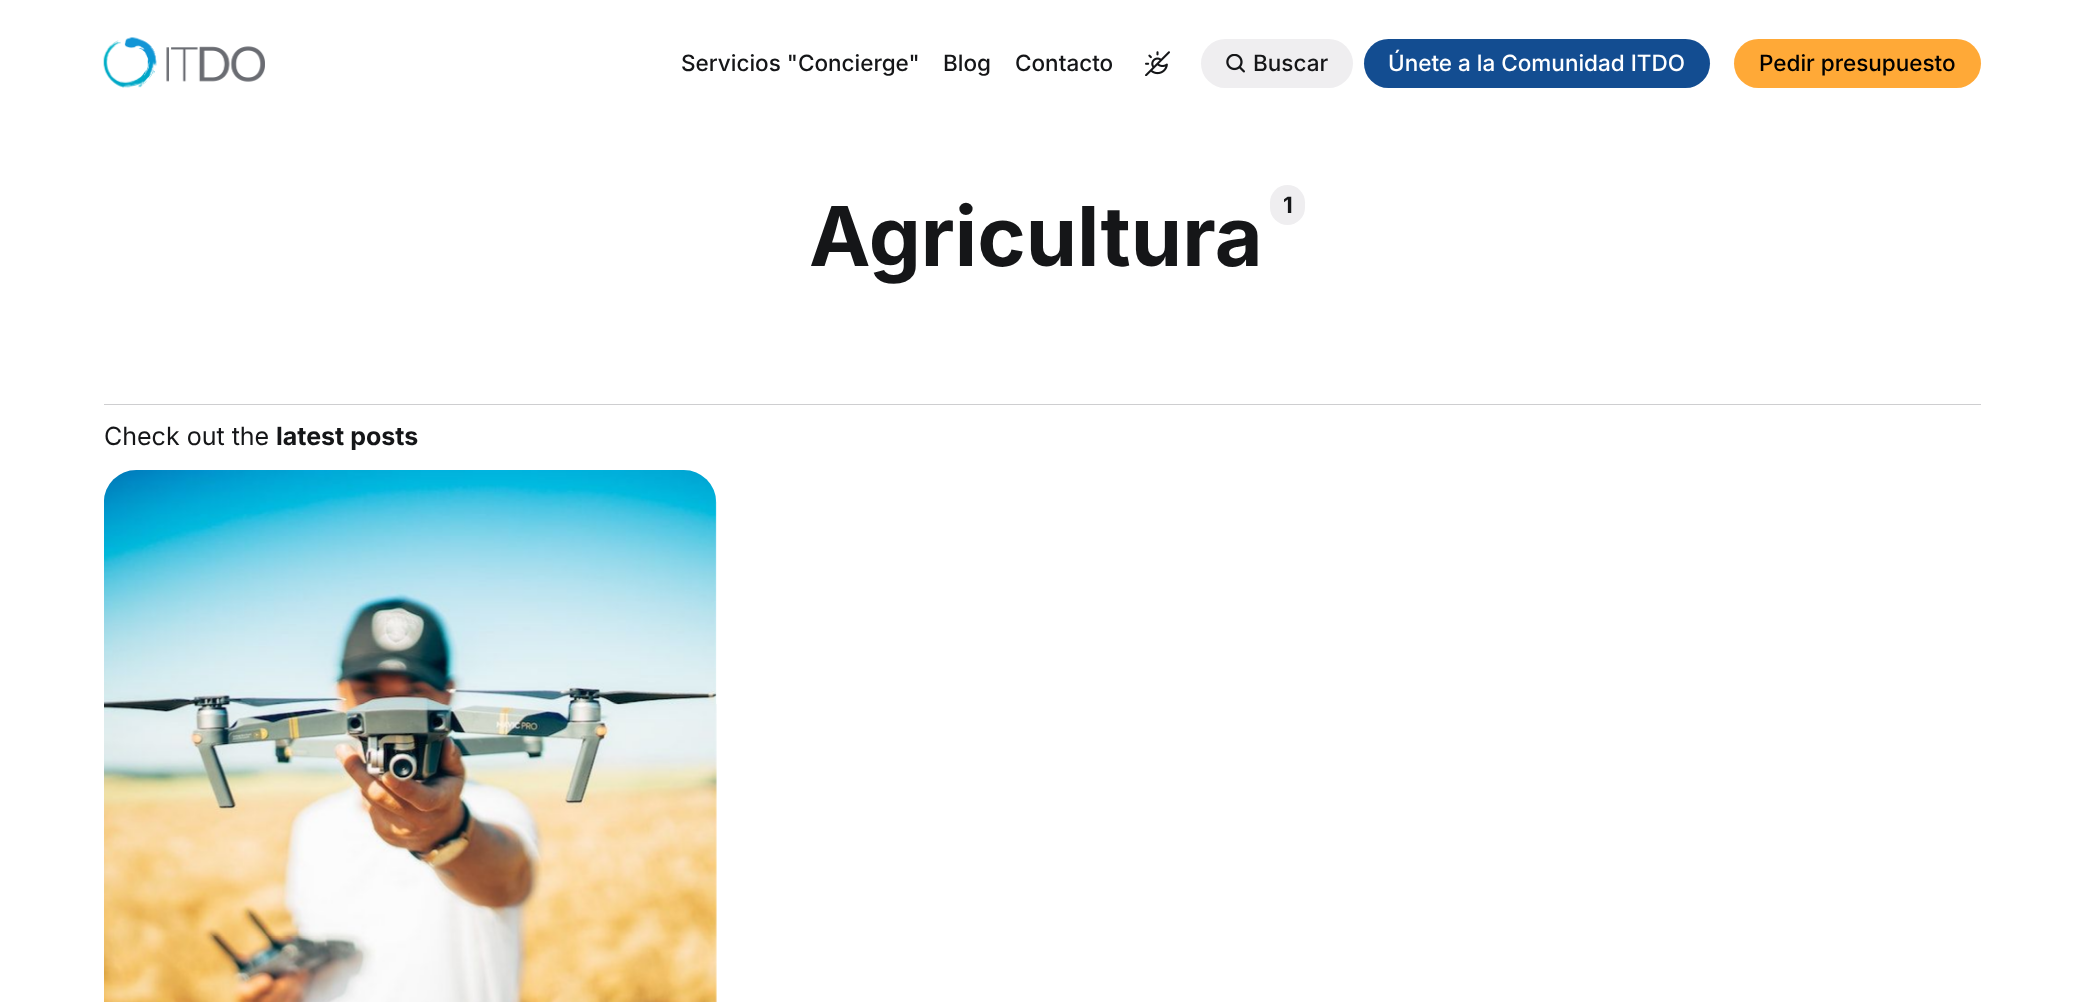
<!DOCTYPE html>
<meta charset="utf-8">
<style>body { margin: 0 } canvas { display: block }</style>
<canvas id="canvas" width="2084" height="1002"></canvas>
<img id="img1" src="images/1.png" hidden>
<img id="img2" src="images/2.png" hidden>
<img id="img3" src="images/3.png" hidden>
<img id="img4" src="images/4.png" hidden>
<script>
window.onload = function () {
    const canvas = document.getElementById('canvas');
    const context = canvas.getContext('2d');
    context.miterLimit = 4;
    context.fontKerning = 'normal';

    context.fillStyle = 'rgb(255, 255, 255)';
    context.fillRect(0, 0, 2084, 1002);
    context.drawImage(document.getElementById('img1'), 103, 37, 162, 51);
    context.drawImage(document.getElementById('img2'), 1145, 51, 25, 25);
    context.fillStyle = 'rgb(239, 238, 240)';
    context.beginPath();
    context.roundRect(1201, 39, 152, 49, 24.5);
    context.fill();
    context.drawImage(document.getElementById('img3'), 1226, 54, 19, 19);
    context.fillStyle = 'rgb(19, 77, 145)';
    context.beginPath();
    context.roundRect(1364, 39, 346, 49, 24.5);
    context.fill();
    context.fillStyle = 'rgb(255, 169, 55)';
    context.beginPath();
    context.roundRect(1734, 39, 247, 49, 24.5);
    context.fill();
    context.fillStyle = 'rgb(239, 238, 240)';
    context.beginPath();
    context.roundRect(1270, 185, 35, 40, 17.5);
    context.fill();
    context.fillStyle = 'rgb(206, 206, 208)';
    context.fillRect(104, 404, 1877, 1);
    context.drawImage(document.getElementById('img4'), 104, 470, 613, 532);
    context.font = '500 22.5px Inter';
    context.fillStyle = 'rgb(21, 22, 24)';
    context.fillText('Servicios "Concierge"', 681, 71);
    context.fillText('Blog', 943, 71);
    context.fillText('Contacto', 1015, 71);
    context.fillText('Buscar', 1253, 71);
    context.fillStyle = 'rgb(255, 255, 255)';
    context.fillText('Únete a la Comunidad ITDO', 1388, 71);
    context.fillStyle = 'rgb(0, 0, 0)';
    context.fillText('Pedir presupuesto', 1759, 71);
    context.font = 'bold 82.5px Inter';
    context.fillStyle = 'rgb(21, 22, 24)';
    context.fillText('Agricultura', 809, 266);
    context.font = 'bold 22.5px Inter';
    context.fillText('1', 1283, 213);
    context.font = '25px Inter';
    context.fillText('Check out the', 104, 445);
    context.font = 'bold 25px Inter';
    context.fillText('latest posts', 276, 445);
};
</script>
